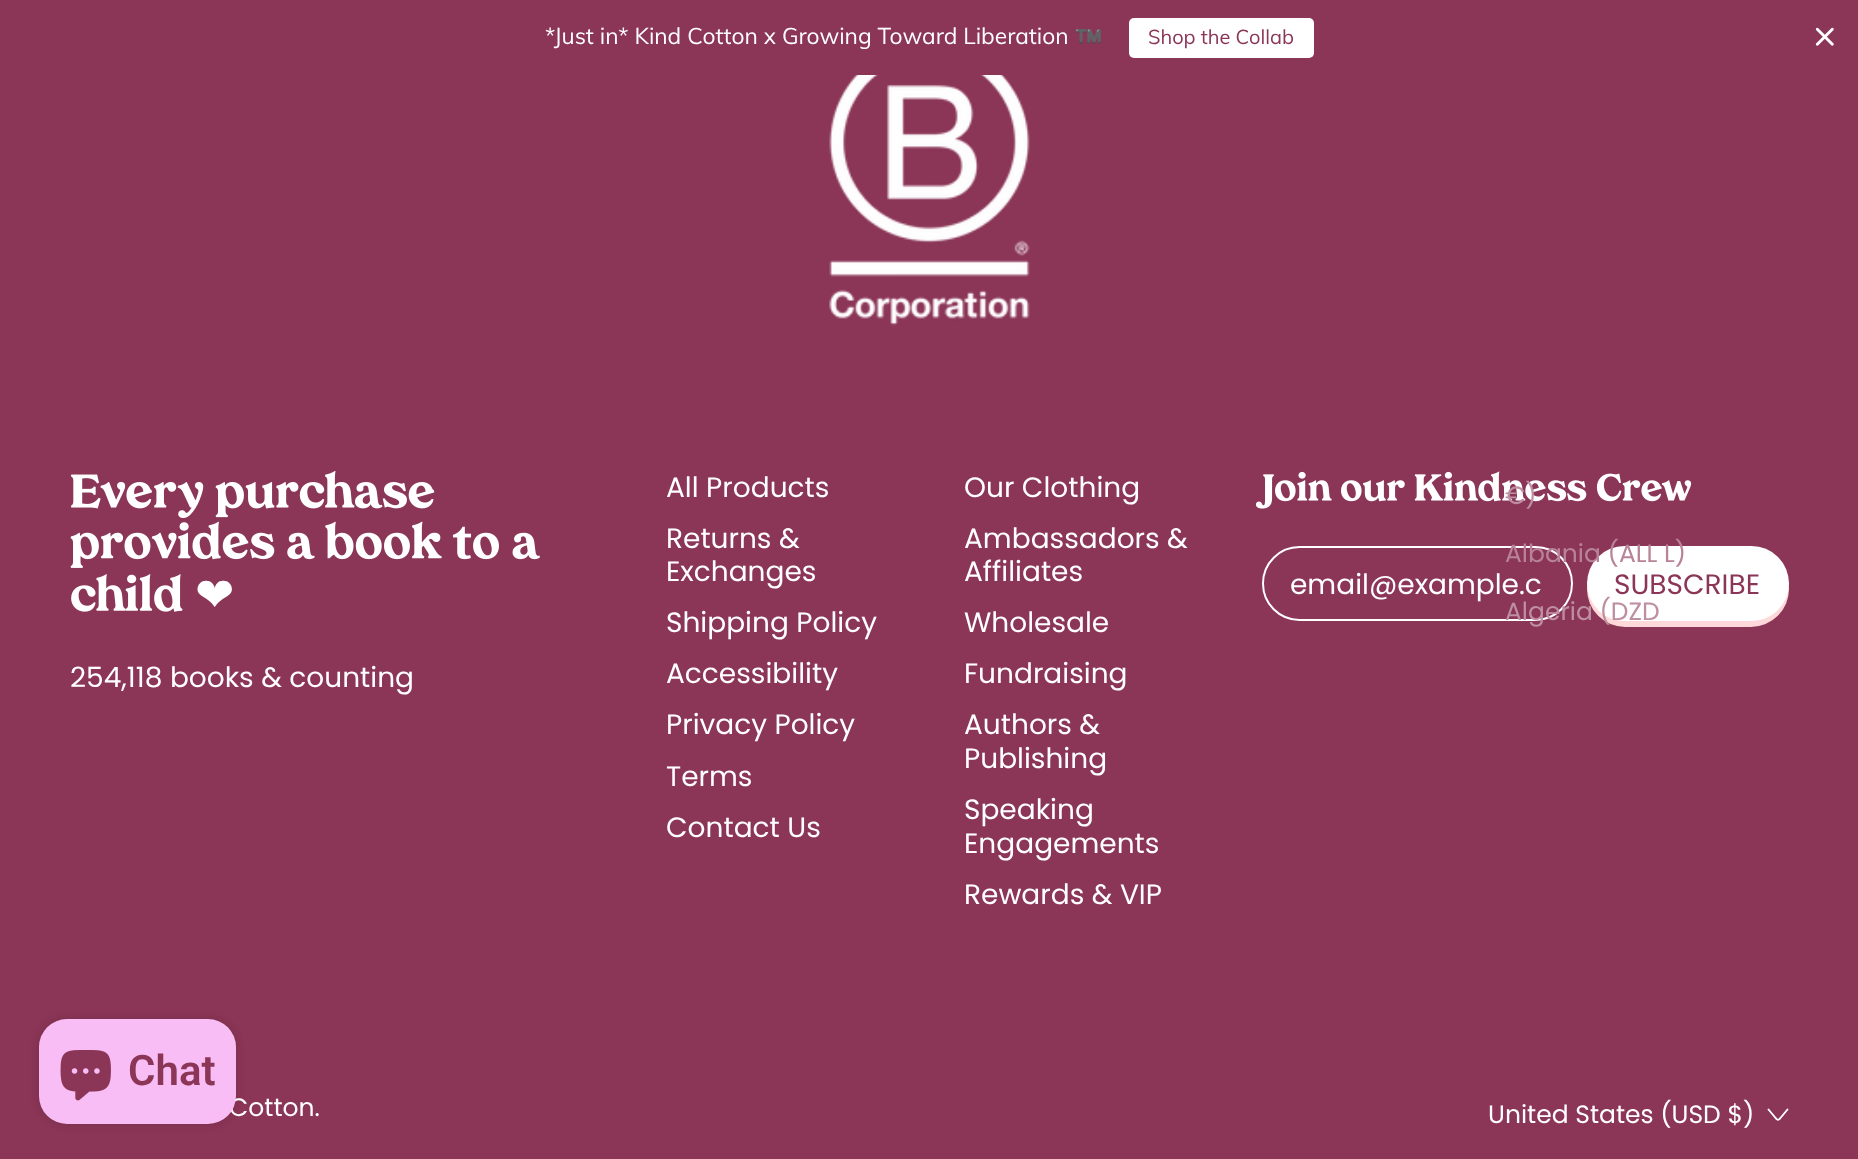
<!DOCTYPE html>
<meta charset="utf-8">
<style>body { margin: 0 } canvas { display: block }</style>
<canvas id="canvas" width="1858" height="1159"></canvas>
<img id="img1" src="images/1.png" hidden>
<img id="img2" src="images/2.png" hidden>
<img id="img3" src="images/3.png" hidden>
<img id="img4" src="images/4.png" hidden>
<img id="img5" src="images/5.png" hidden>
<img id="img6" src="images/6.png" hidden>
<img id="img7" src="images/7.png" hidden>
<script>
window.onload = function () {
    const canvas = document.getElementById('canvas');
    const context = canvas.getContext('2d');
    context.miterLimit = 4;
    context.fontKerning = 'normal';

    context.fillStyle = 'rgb(139, 53, 87)';
    context.fillRect(0, 0, 1858, 1159);
    context.fillStyle = 'rgb(255, 255, 255)';
    context.beginPath();
    context.roundRect(1129, 18, 185, 40, 5);
    context.fill();
    context.drawImage(document.getElementById('img1'), 1815, 27, 19, 19);
    context.drawImage(document.getElementById('img2'), 829, 75, 201, 251);
    context.drawImage(document.getElementById('img3'), 70, 471, 365, 47);
    context.drawImage(document.getElementById('img4'), 70, 521, 470, 47);
    context.drawImage(document.getElementById('img5'), 71, 574, 112, 38);
    context.drawImage(document.getElementById('img6'), 1255, 471, 437, 38);
    context.beginPath();
    context.roundRect(1263, 547, 309, 73, 36.5);
    context.strokeStyle = 'rgb(255, 255, 255)';
    context.lineWidth = 2;
    context.stroke();
    context.fillStyle = 'rgb(255, 217, 217)';
    context.beginPath();
    context.roundRect(1587, 551, 202, 76, 38);
    context.fill();
    context.fillStyle = 'rgb(255, 255, 255)';
    context.beginPath();
    context.roundRect(1587, 546, 202, 75, 37.5);
    context.fill();
    context.beginPath();
    context.moveTo(1768.5, 1109.5);
    context.lineTo(1776, 1118.5);
    context.bezierCurveTo(1778.5, 1120.5, 1777.5, 1120.5, 1780, 1118.5);
    context.lineTo(1787.5, 1109.5);
    context.lineWidth = 1.9;
    context.lineCap = 'round';
    context.lineJoin = 'round';
    context.stroke();
    context.fillStyle = 'rgba(0, 0, 0, 0.15)';
    context.filter = 'blur(4.5px)';
    context.beginPath();
    context.roundRect(39, 1019, 197, 105, 28);
    context.fill();
    context.filter = 'none';
    context.font = '22.75px Muli';
    context.fillStyle = 'rgb(255, 255, 255)';
    context.fillText('*Just in* Kind Cotton x Growing Toward Liberation', 545, 44);
    context.font = '22.75px Noto Color Emoji';
    context.fillText('™️', 1074, 44);
    context.font = '20px Muli';
    context.fillStyle = 'rgb(139, 53, 87)';
    context.fillText('Shop the Collab', 1148, 44);
    context.font = '47px DejaVu Sans';
    context.fillStyle = 'rgb(255, 255, 255)';
    context.fillText('❤', 195, 611);
    context.font = '28px Poppins';
    context.fillText('254,118 books & counting', 70, 687);
    context.fillText('All Products', 666, 497);
    context.fillText('Returns &', 666, 548);
    context.fillText('Exchanges', 666, 581);
    context.fillText('Shipping Policy', 666, 632);
    context.fillText('Accessibility', 666, 683);
    context.fillText('Privacy Policy', 666, 734);
    context.fillText('Terms', 666, 786);
    context.fillText('Contact Us', 666, 837);
    context.fillText('Our Clothing', 964, 497);
    context.fillText('Ambassadors &', 964, 548);
    context.fillText('Affiliates', 964, 581);
    context.fillText('Wholesale', 964, 632);
    context.fillText('Fundraising', 964, 683);
    context.fillText('Authors &', 964, 734);
    context.fillText('Publishing', 964, 768);
    context.fillText('Speaking', 964, 819);
    context.fillText('Engagements', 964, 853);
    context.fillText('Rewards & VIP', 964, 904);
    context.fillText('email@example.c', 1290, 594);
    context.fillStyle = 'rgb(139, 53, 87)';
    context.fillText('SUBSCRIBE', 1614, 594);
    context.font = '25px Poppins';
    context.fillStyle = 'rgb(255, 255, 255)';
    context.fillText('Cotton.', 229, 1116);
    context.fillStyle = 'rgb(190, 142, 161)';
    context.fillText('€)', 1505, 504);
    context.fillStyle = 'rgb(184, 131, 152)';
    context.fillText('Albania (ALL L)', 1505, 562);
    context.fillStyle = 'rgb(190, 142, 161)';
    context.fillText('Algeria (DZD', 1505, 620);
    context.fillStyle = 'rgb(255, 255, 255)';
    context.fillText('United States (USD $)', 1488, 1123);
    context.fillStyle = 'rgb(248, 189, 244)';
    context.beginPath();
    context.roundRect(39, 1019, 197, 105, 28);
    context.fill();
    context.drawImage(document.getElementById('img7'), 60, 1050, 51, 51);
    context.font = '600 42px Roboto';
    context.fillStyle = 'rgb(139, 53, 87)';
    context.fillText('Chat', 128, 1085);
};
</script>
